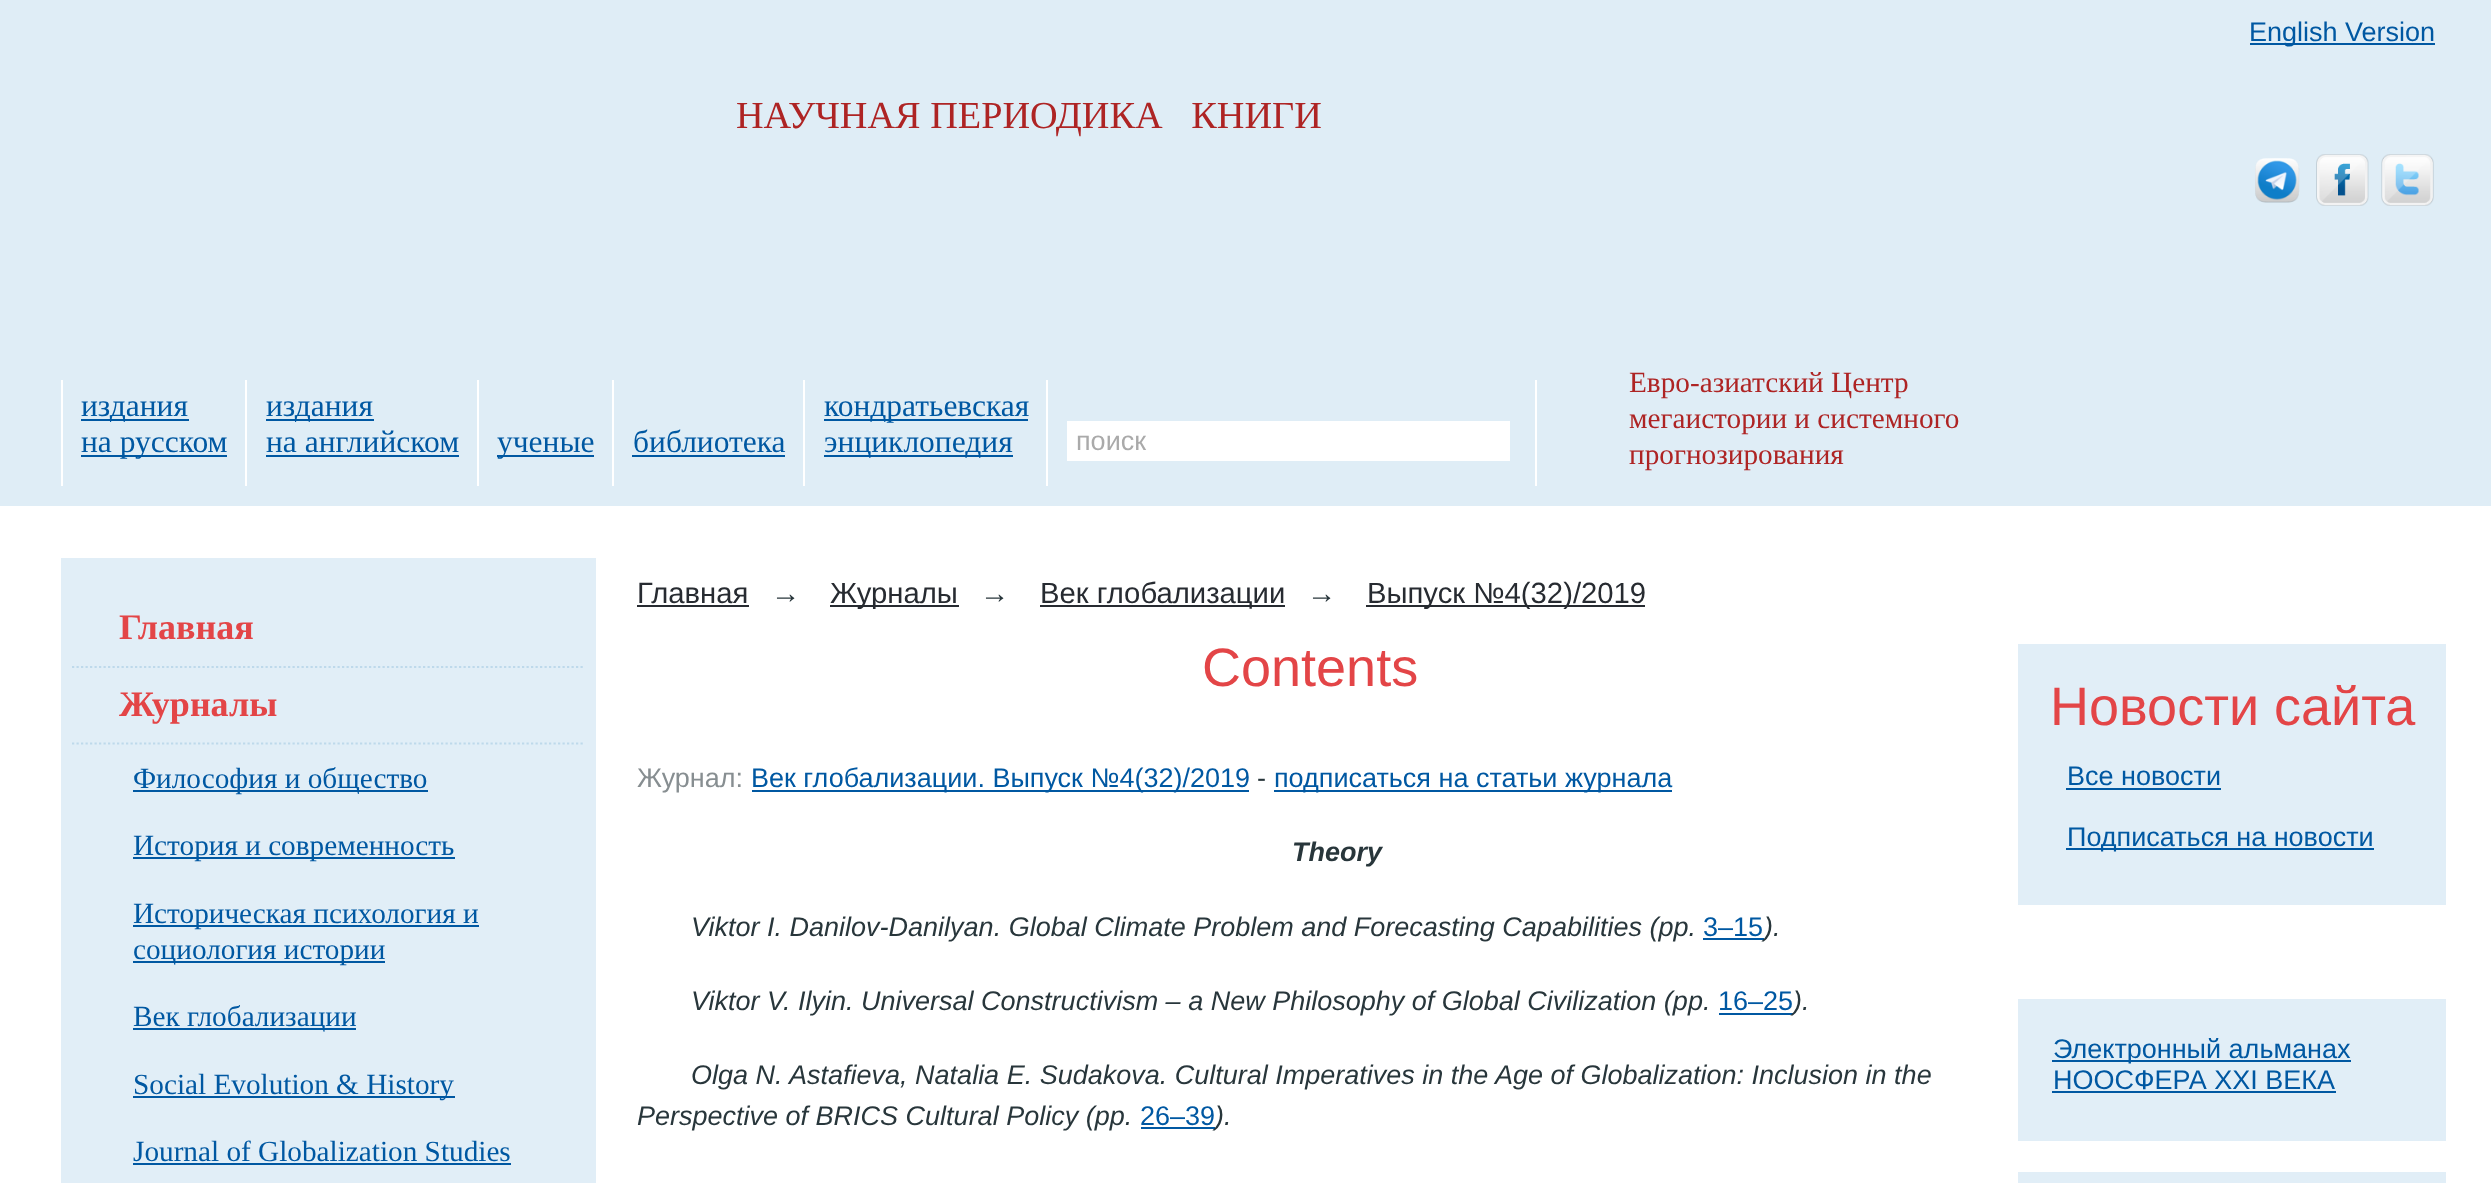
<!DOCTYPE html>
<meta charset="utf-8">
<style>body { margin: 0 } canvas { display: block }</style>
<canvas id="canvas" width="2491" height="1183"></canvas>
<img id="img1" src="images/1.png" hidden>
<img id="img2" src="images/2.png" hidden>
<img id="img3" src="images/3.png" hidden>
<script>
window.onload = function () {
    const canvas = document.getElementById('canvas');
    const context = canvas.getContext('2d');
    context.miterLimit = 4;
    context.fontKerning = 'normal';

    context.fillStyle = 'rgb(255, 255, 255)';
    context.fillRect(0, 0, 2491, 1183);
    context.fillStyle = 'rgb(223, 237, 246)';
    context.fillRect(0, 0, 2491, 506);
    context.fillStyle = 'rgb(0, 88, 162)';
    context.fillRect(2250, 43, 185, 2);
    context.drawImage(document.getElementById('img1'), 2255, 158, 45, 45);
    context.drawImage(document.getElementById('img2'), 2316, 154, 53, 52);
    context.drawImage(document.getElementById('img3'), 2381, 154, 53, 52);
    context.fillStyle = 'rgb(255, 255, 255)';
    context.fillRect(61, 380, 2, 106);
    context.fillStyle = 'rgb(0, 88, 162)';
    context.fillRect(81, 419, 108, 2);
    context.fillRect(81, 455, 146, 2);
    context.fillStyle = 'rgb(255, 255, 255)';
    context.fillRect(245, 380, 2, 106);
    context.fillStyle = 'rgb(0, 88, 162)';
    context.fillRect(266, 419, 108, 2);
    context.fillRect(266, 455, 193, 2);
    context.fillStyle = 'rgb(255, 255, 255)';
    context.fillRect(477, 380, 2, 106);
    context.fillStyle = 'rgb(0, 88, 162)';
    context.fillRect(497, 455, 97, 2);
    context.fillStyle = 'rgb(255, 255, 255)';
    context.fillRect(612, 380, 2, 106);
    context.fillStyle = 'rgb(0, 88, 162)';
    context.fillRect(632, 455, 153, 2);
    context.fillStyle = 'rgb(255, 255, 255)';
    context.fillRect(803, 380, 2, 106);
    context.fillStyle = 'rgb(0, 88, 162)';
    context.fillRect(824, 419, 204, 2);
    context.fillRect(824, 455, 189, 2);
    context.fillStyle = 'rgb(255, 255, 255)';
    context.fillRect(1535, 380, 2, 106);
    context.fillRect(1046, 380, 2, 106);
    context.fillRect(1067, 421, 443, 40);
    context.fillStyle = 'rgb(225, 238, 247)';
    context.fillRect(61, 558, 535, 625);
    context.beginPath();
    context.moveTo(72, 667);
    context.lineTo(585, 667);
    context.strokeStyle = 'rgb(190, 217, 235)';
    context.lineWidth = 2.2;
    context.setLineDash([2.25, 2.25]);
    context.stroke();
    context.beginPath();
    context.moveTo(72, 743.5);
    context.lineTo(585, 743.5);
    context.stroke();
    context.fillStyle = 'rgb(0, 88, 162)';
    context.fillRect(133, 790, 295, 2);
    context.fillRect(133, 857, 322, 2);
    context.fillRect(133, 925, 346, 2);
    context.fillRect(133, 961, 252, 2);
    context.fillRect(133, 1028, 223, 2);
    context.fillRect(133, 1096, 322, 2);
    context.fillRect(133, 1163, 378, 2);
    context.fillStyle = 'rgb(39, 43, 49)';
    context.fillRect(637, 605, 112, 2);
    context.fillRect(830, 605, 129, 2);
    context.fillRect(1040, 605, 245, 2);
    context.fillRect(1366, 605, 279, 2);
    context.fillStyle = 'rgb(0, 88, 162)';
    context.fillRect(752, 790, 497, 2);
    context.fillRect(1274, 790, 398, 2);
    context.fillRect(1703, 938, 61, 2);
    context.fillRect(1719, 1013, 74, 2);
    context.fillRect(1141, 1127, 74, 2);
    context.fillStyle = 'rgb(225, 238, 247)';
    context.fillRect(2018, 644, 428, 261);
    context.fillStyle = 'rgb(0, 88, 162)';
    context.fillRect(2066, 788, 155, 2);
    context.fillRect(2066, 848, 308, 2);
    context.fillStyle = 'rgb(225, 238, 247)';
    context.fillRect(2018, 999, 428, 142);
    context.fillStyle = 'rgb(0, 88, 162)';
    context.fillRect(2052, 1060, 299, 2);
    context.fillRect(2052, 1091, 284, 2);
    context.fillStyle = 'rgb(225, 238, 247)';
    context.fillRect(2018, 1172, 428, 11);
    context.font = '27px Liberation Sans';
    context.fillStyle = 'rgb(0, 88, 162)';
    context.fillText('English Version', 2249, 41);
    context.font = '38.25px Liberation Serif';
    context.fillStyle = 'rgb(174, 36, 36)';
    context.fillText('НАУЧНАЯ ПЕРИОДИКА   КНИГИ', 736, 128);
    context.font = '31.5px Liberation Serif';
    context.fillStyle = 'rgb(0, 88, 162)';
    context.fillText('издания', 81, 416);
    context.fillText('на русском', 81, 452);
    context.fillText('издания', 266, 416);
    context.fillText('на английском', 266, 452);
    context.fillText('ученые', 497, 452);
    context.fillText('библиотека', 633, 452);
    context.fillText('кондратьевская', 824, 416);
    context.fillText('энциклопедия', 824, 452);
    context.font = '27px Liberation Sans';
    context.fillStyle = 'rgb(170, 170, 170)';
    context.fillText('поиск', 1076, 450);
    context.font = '29.25px Liberation Serif';
    context.fillStyle = 'rgb(174, 36, 36)';
    context.fillText('Евро-азиатский Центр', 1629, 392);
    context.fillText('мегаистории и системного', 1629, 428);
    context.fillText('прогнозирования', 1629, 464);
    context.font = 'bold 36px Liberation Serif';
    context.fillStyle = 'rgb(227, 69, 71)';
    context.fillText('Главная', 119, 639);
    context.fillText('Журналы', 119, 716);
    context.font = '29.25px Liberation Serif';
    context.fillStyle = 'rgb(0, 88, 162)';
    context.fillText('Философия и общество', 133, 788);
    context.fillText('История и современность', 133, 855);
    context.fillText('Историческая психология и', 133, 923);
    context.fillText('социология истории', 133, 959);
    context.fillText('Век глобализации', 133, 1026);
    context.fillText('Social Evolution & History', 133, 1094);
    context.fillText('Journal of Globalization Studies', 133, 1161);
    context.font = '29.25px Liberation Sans';
    context.fillStyle = 'rgb(39, 43, 49)';
    context.fillText('Главная', 637, 603);
    context.fillStyle = 'rgb(40, 54, 59)';
    context.fillText('→', 771, 603);
    context.fillStyle = 'rgb(39, 43, 49)';
    context.fillText('Журналы', 830, 603);
    context.fillStyle = 'rgb(40, 54, 59)';
    context.fillText('→', 980, 603);
    context.fillStyle = 'rgb(39, 43, 49)';
    context.fillText('Век глобализации', 1040, 603);
    context.fillStyle = 'rgb(40, 54, 59)';
    context.fillText('→', 1307, 603);
    context.fillStyle = 'rgb(39, 43, 49)';
    context.fillText('Выпуск №4(32)/2019', 1367, 603);
    context.font = '54px Liberation Sans';
    context.fillStyle = 'rgb(227, 69, 71)';
    context.fillText('Contents', 1202, 686);
    context.font = '27px Liberation Sans';
    context.fillStyle = 'rgb(135, 142, 145)';
    context.fillText('Журнал:', 637, 787);
    context.fillStyle = 'rgb(0, 88, 162)';
    context.fillText('Век глобализации. Выпуск №4(32)/2019', 751, 787);
    context.fillStyle = 'rgb(40, 54, 59)';
    context.fillText('-', 1257, 787);
    context.fillStyle = 'rgb(0, 88, 162)';
    context.fillText('подписаться на статьи журнала', 1274, 787);
    context.font = 'italic bold 27px Liberation Sans';
    context.fillStyle = 'rgb(40, 54, 59)';
    context.fillText('Theory', 1292, 861);
    context.font = 'italic 27px Liberation Sans';
    context.fillText('Viktor I. Danilov-Danilyan. Global Climate Problem and Forecasting Capabilities (pp.', 691, 936);
    context.font = '27px Liberation Sans';
    context.fillStyle = 'rgb(0, 88, 162)';
    context.fillText('3–15', 1703, 936);
    context.font = 'italic 27px Liberation Sans';
    context.fillStyle = 'rgb(40, 54, 59)';
    context.fillText(').', 1764, 936);
    context.fillText('Viktor V. Ilyin. Universal Constructivism – a New Philosophy of Global Civilization (pp.', 691, 1010);
    context.font = '27px Liberation Sans';
    context.fillStyle = 'rgb(0, 88, 162)';
    context.fillText('16–25', 1718, 1010);
    context.font = 'italic 27px Liberation Sans';
    context.fillStyle = 'rgb(40, 54, 59)';
    context.fillText(').', 1793, 1010);
    context.fillText('Olga N. Astafieva, Natalia E. Sudakova. Cultural Imperatives in the Age of Globalization: Inclusion in the', 691, 1084);
    context.fillText('Perspective of BRICS Cultural Policy (pp.', 637, 1125);
    context.font = '27px Liberation Sans';
    context.fillStyle = 'rgb(0, 88, 162)';
    context.fillText('26–39', 1140, 1125);
    context.font = 'italic 27px Liberation Sans';
    context.fillStyle = 'rgb(40, 54, 59)';
    context.fillText(').', 1215, 1125);
    context.font = '54px Liberation Sans';
    context.fillStyle = 'rgb(227, 69, 71)';
    context.fillText('Новости сайта', 2050, 725);
    context.font = '27px Liberation Sans';
    context.fillStyle = 'rgb(0, 88, 162)';
    context.fillText('Все новости', 2067, 785);
    context.fillText('Подписаться на новости', 2067, 846);
    context.fillText('Электронный альманах', 2053, 1058);
    context.fillText('НООСФЕРА XXI ВЕКА', 2053, 1089);
};
</script>
